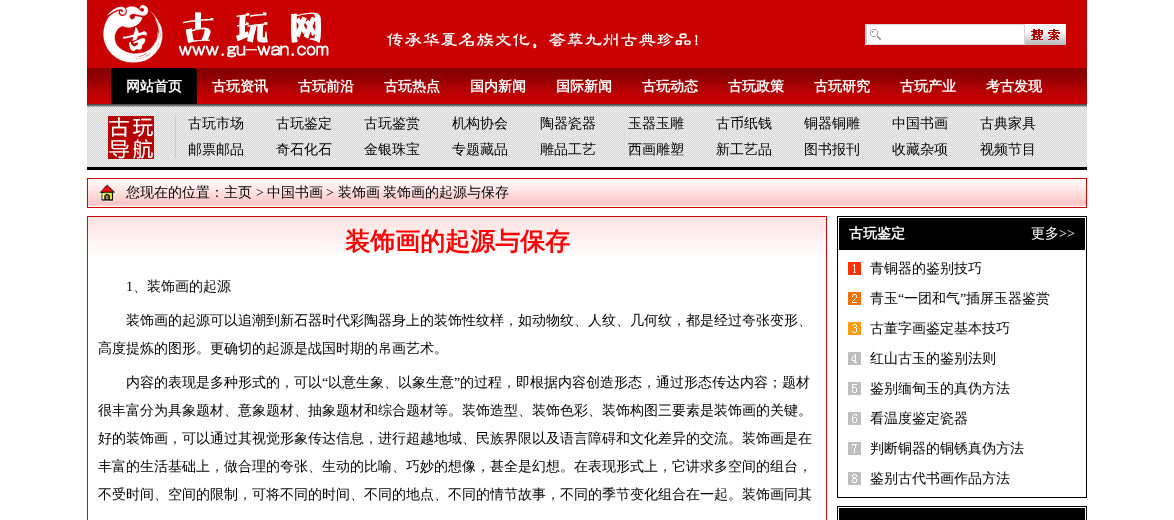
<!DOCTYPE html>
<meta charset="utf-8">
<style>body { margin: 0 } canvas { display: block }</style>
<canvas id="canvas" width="1174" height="520"></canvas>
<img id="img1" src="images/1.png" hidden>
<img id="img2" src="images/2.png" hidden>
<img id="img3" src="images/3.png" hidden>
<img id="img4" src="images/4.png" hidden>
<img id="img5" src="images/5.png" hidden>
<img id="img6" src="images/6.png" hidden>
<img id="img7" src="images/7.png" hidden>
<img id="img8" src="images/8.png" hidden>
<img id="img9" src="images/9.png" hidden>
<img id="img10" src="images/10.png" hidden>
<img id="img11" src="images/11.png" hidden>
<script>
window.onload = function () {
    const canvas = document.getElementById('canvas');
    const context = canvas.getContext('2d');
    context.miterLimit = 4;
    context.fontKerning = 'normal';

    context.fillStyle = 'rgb(255, 255, 255)';
    context.fillRect(0, 0, 1174, 520);
    context.fillStyle = 'rgb(202, 0, 0)';
    context.fillRect(87, 0, 1000, 68);
    context.drawImage(document.getElementById('img1'), 103, 3, 596, 61);
    context.fillStyle = 'rgb(255, 255, 255)';
    context.fillRect(881, 25, 143, 19);
    context.drawImage(document.getElementById('img2'), 866, 25, 15, 19);
    context.strokeStyle = 'rgb(216, 216, 216)';
    context.strokeRect(865.5, 24.5, 159, 20);
    context.drawImage(document.getElementById('img3'), 1025, 24, 41, 21);
    context.drawImage(document.getElementById('img4'), 87, 68, 1000, 39);
    context.drawImage(document.getElementById('img5'), 111, 68, 86, 36);
    context.drawImage(document.getElementById('img6'), 87, 107, 1000, 60);
    context.fillStyle = 'rgb(0, 0, 0)';
    context.fillRect(87, 167, 1000, 3);
    context.drawImage(document.getElementById('img7'), 108, 116, 46, 43);
    context.fillStyle = 'rgb(204, 204, 204)';
    context.fillRect(175, 115, 1, 44);
    context.drawImage(document.getElementById('img8'), 88, 180, 998, 26);
    context.strokeStyle = 'rgb(209, 0, 3)';
    context.strokeRect(87.5, 178.5, 999, 29);
    context.drawImage(document.getElementById('img9'), 99, 184, 17, 18);
    context.drawImage(document.getElementById('img10'), 88, 217, 738, 37);
    context.strokeStyle = 'rgb(210, 7, 10)';
    context.strokeRect(87.5, 216.5, 739, 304);
    context.strokeStyle = 'rgb(0, 0, 0)';
    context.strokeRect(837.5, 216.5, 249, 281);
    context.fillStyle = 'rgb(0, 0, 0)';
    context.fillRect(839, 218, 246, 32);
    context.drawImage(document.getElementById('img11'), 848, 262, 13, 223);
    context.strokeRect(837.5, 506.5, 249, 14);
    context.fillRect(839, 508, 246, 12);
    context.font = 'bold 14px WenQuanYi Zen Hei';
    context.fillStyle = 'rgb(255, 255, 255)';
    context.fillText('网站首页', 126, 91);
    context.fillText('古玩资讯', 212, 91);
    context.fillText('古玩前沿', 298, 91);
    context.fillText('古玩热点', 384, 91);
    context.fillText('国内新闻', 470, 91);
    context.fillText('国际新闻', 556, 91);
    context.fillText('古玩动态', 642, 91);
    context.fillText('古玩政策', 728, 91);
    context.fillText('古玩研究', 814, 91);
    context.fillText('古玩产业', 900, 91);
    context.fillText('考古发现', 986, 91);
    context.font = '500 14px WenQuanYi Zen Hei';
    context.fillStyle = 'rgb(0, 0, 0)';
    context.fillText('古玩市场', 188, 128);
    context.fillText('古玩鉴定', 276, 128);
    context.fillText('古玩鉴赏', 364, 128);
    context.fillText('机构协会', 452, 128);
    context.fillText('陶器瓷器', 540, 128);
    context.fillText('玉器玉雕', 628, 128);
    context.fillText('古币纸钱', 716, 128);
    context.fillText('铜器铜雕', 804, 128);
    context.fillText('中国书画', 892, 128);
    context.fillText('古典家具', 980, 128);
    context.fillText('邮票邮品', 188, 154);
    context.fillText('奇石化石', 276, 154);
    context.fillText('金银珠宝', 364, 154);
    context.fillText('专题藏品', 452, 154);
    context.fillText('雕品工艺', 540, 154);
    context.fillText('西画雕塑', 628, 154);
    context.fillText('新工艺品', 716, 154);
    context.fillText('图书报刊', 804, 154);
    context.fillText('收藏杂项', 892, 154);
    context.fillText('视频节目', 980, 154);
    context.fillText('您现在的位置：主页', 126, 197);
    context.font = '14px Liberation Serif';
    context.fillText('>', 256, 197);
    context.font = '500 14px WenQuanYi Zen Hei';
    context.fillText('中国书画', 267, 197);
    context.font = '14px Liberation Serif';
    context.fillText('>', 326, 197);
    context.font = '500 14px WenQuanYi Zen Hei';
    context.fillText('装饰画', 338, 197);
    context.fillText('装饰画的起源与保存', 383, 197);
    context.font = 'bold 25px WenQuanYi Zen Hei';
    context.fillStyle = 'rgb(255, 0, 0)';
    context.fillText('装饰画的起源与保存', 345, 250);
    context.font = '14px Liberation Serif';
    context.fillStyle = 'rgb(0, 0, 0)';
    context.fillText('1', 126, 291);
    context.font = '500 14px WenQuanYi Zen Hei';
    context.fillText('、装饰画的起源', 133, 291);
    context.fillText('装饰画的起源可以追潮到新石器时代彩陶器身上的装饰性纹样，如动物纹、人纹、几何纹，都是经过夸张变形、', 126, 325);
    context.fillText('高度提炼的图形。更确切的起源是战国时期的帛画艺术。', 98, 353);
    context.fillText('内容的表现是多种形式的，可以', 126, 387);
    context.font = '14px Liberation Serif';
    context.fillText('“', 322, 387);
    context.font = '500 14px WenQuanYi Zen Hei';
    context.fillText('以意生象、以象生意', 328, 387);
    context.font = '14px Liberation Serif';
    context.fillText('”', 454, 387);
    context.font = '500 14px WenQuanYi Zen Hei';
    context.fillText('的过程，即根据内容创造形态，通过形态传达内容；题材', 460, 387);
    context.fillText('很丰富分为具象题材、意象题材、抽象题材和综合题材等。装饰造型、装饰色彩、装饰构图三要素是装饰画的关键。', 98, 415);
    context.fillText('好的装饰画，可以通过其视觉形象传达信息，进行超越地域、民族界限以及语言障碍和文化差异的交流。装饰画是在', 98, 443);
    context.fillText('丰富的生活基础上，做合理的夸张、生动的比喻、巧妙的想像，甚全是幻想。在表现形式上，它讲求多空间的组台，', 98, 471);
    context.fillText('不受时间、空间的限制，可将不同的时间、不同的地点、不同的情节故事，不同的季节变化组合在一起。装饰画同其', 98, 499);
    context.font = 'bold 14px WenQuanYi Zen Hei';
    context.fillStyle = 'rgb(255, 255, 255)';
    context.fillText('古玩鉴定', 849, 238);
    context.font = '500 14px WenQuanYi Zen Hei';
    context.fillText('更多', 1031, 238);
    context.font = '14px Liberation Serif';
    context.fillText('>>', 1059, 238);
    context.font = '500 14px WenQuanYi Zen Hei';
    context.fillStyle = 'rgb(0, 0, 0)';
    context.fillText('青铜器的鉴别技巧', 870, 273);
    context.fillText('青玉', 870, 303);
    context.font = '14px Liberation Serif';
    context.fillText('“', 898, 303);
    context.font = '500 14px WenQuanYi Zen Hei';
    context.fillText('一团和气', 904, 303);
    context.font = '14px Liberation Serif';
    context.fillText('”', 960, 303);
    context.font = '500 14px WenQuanYi Zen Hei';
    context.fillText('插屏玉器鉴赏', 966, 303);
    context.fillText('古董字画鉴定基本技巧', 870, 333);
    context.fillText('红山古玉的鉴别法则', 870, 363);
    context.fillText('鉴别缅甸玉的真伪方法', 870, 393);
    context.fillText('看温度鉴定瓷器', 870, 423);
    context.fillText('判断铜器的铜锈真伪方法', 870, 453);
    context.fillText('鉴别古代书画作品方法', 870, 483);
};
</script>
